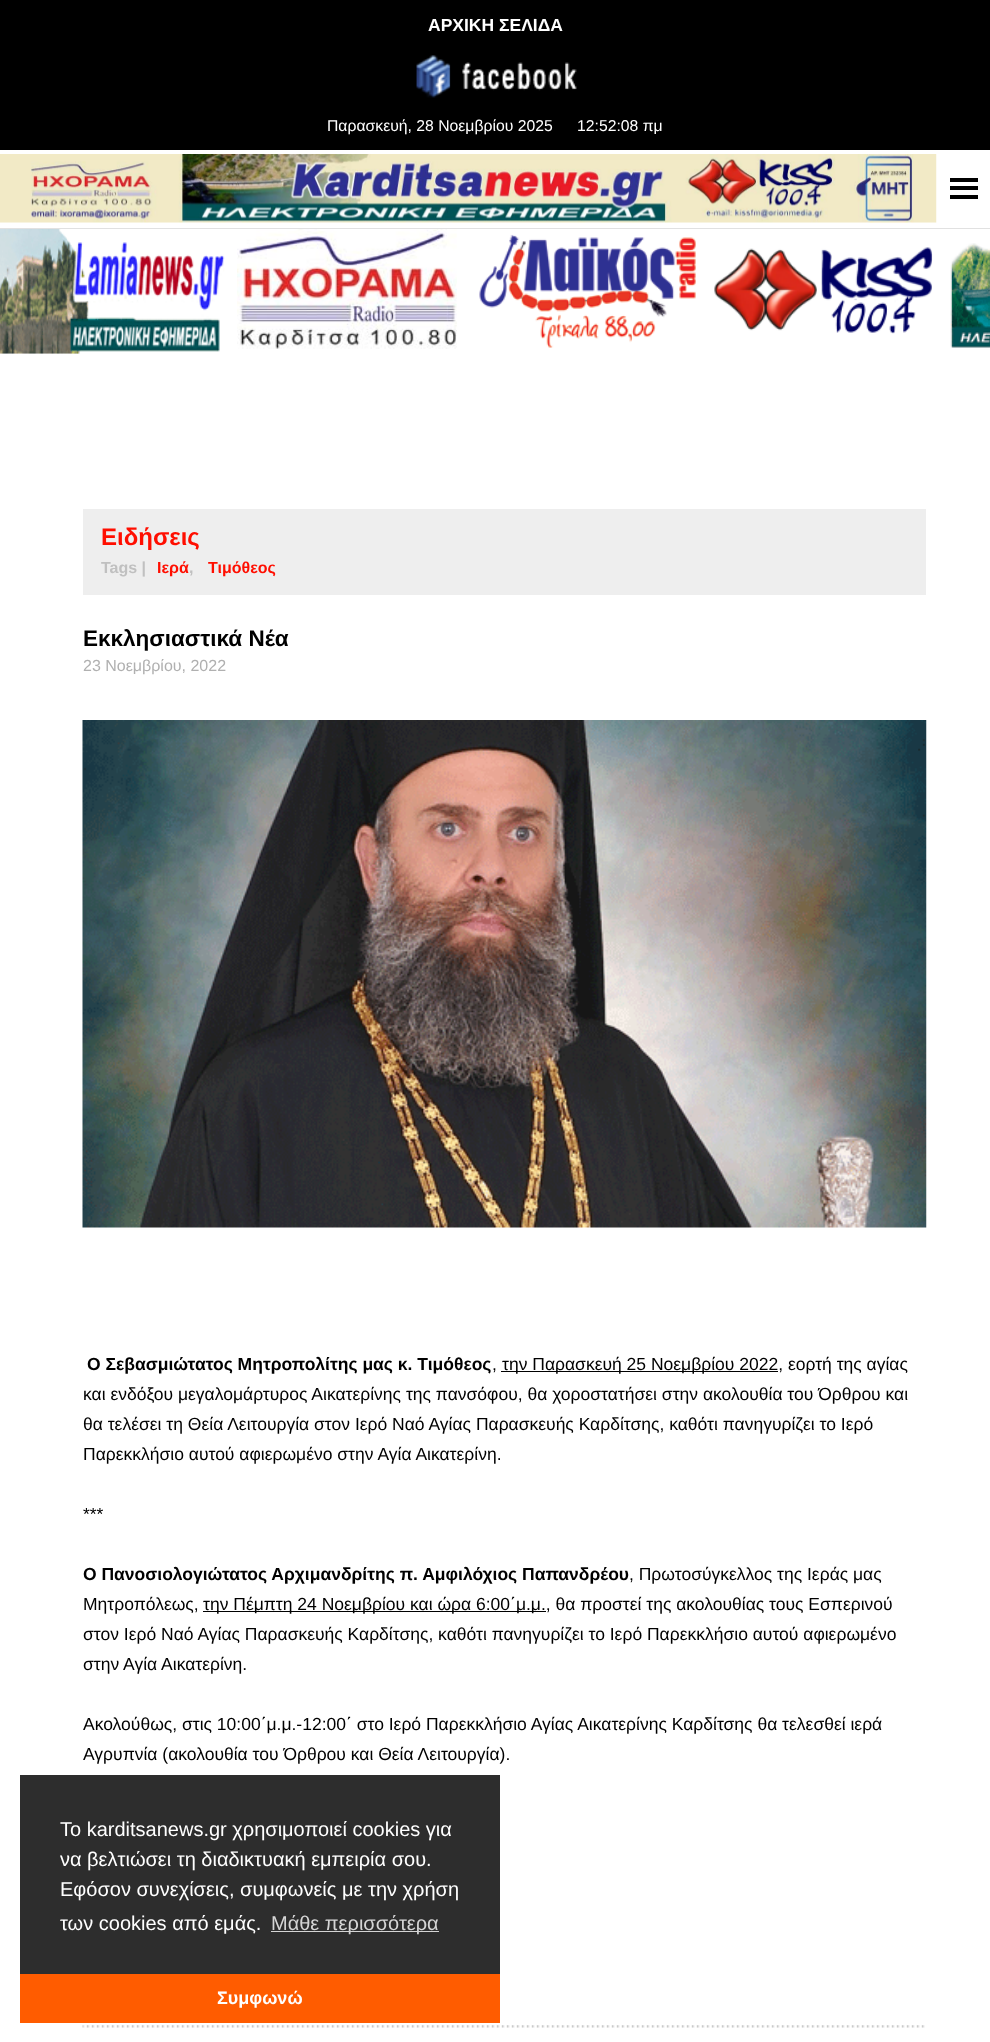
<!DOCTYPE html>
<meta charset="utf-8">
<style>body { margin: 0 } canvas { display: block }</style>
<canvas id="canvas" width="990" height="2042"></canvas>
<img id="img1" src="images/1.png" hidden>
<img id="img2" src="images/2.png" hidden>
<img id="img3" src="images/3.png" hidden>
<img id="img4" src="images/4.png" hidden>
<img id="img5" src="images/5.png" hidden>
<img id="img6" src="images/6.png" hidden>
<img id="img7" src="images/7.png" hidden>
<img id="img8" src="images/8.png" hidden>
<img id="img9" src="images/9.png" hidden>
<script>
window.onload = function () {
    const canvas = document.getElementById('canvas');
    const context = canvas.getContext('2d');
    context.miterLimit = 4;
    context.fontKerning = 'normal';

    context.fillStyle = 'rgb(255, 255, 255)';
    context.fillRect(0, 0, 990, 2042);
    context.fillStyle = 'rgb(225, 225, 225)';
    context.fillRect(0, 228, 990, 1);
    context.fillStyle = 'rgb(0, 0, 0)';
    context.fillRect(0, 0, 990, 150);
    context.drawImage(document.getElementById('img1'), 416, 55, 161, 43);
    context.drawImage(document.getElementById('img2'), 0, 154, 937, 69);
    context.fillRect(950, 186, 28, 4);
    context.fillRect(950, 178, 28, 4);
    context.fillRect(950, 195, 28, 4);
    context.drawImage(document.getElementById('img3'), 0, 229, 225, 125);
    context.drawImage(document.getElementById('img4'), 237, 229, 220, 120);
    context.drawImage(document.getElementById('img5'), 479, 234, 217, 114);
    context.drawImage(document.getElementById('img6'), 714, 247, 219, 87);
    context.drawImage(document.getElementById('img7'), 950, 243, 40, 105);
    context.fillStyle = 'rgb(238, 238, 238)';
    context.fillRect(83, 509, 843, 86);
    context.drawImage(document.getElementById('img8'), 82, 720, 845, 508);
    context.fillStyle = 'rgb(0, 0, 0)';
    context.fillRect(501, 1371, 277, 1);
    context.fillRect(203, 1611, 343, 1);
    context.drawImage(document.getElementById('img9'), 82, 2025, 843, 3);
    context.fillStyle = 'rgb(45, 45, 45)';
    context.fillRect(20, 1775, 480, 199);
    context.fillStyle = 'rgb(213, 213, 213)';
    context.fillRect(271, 1931, 168, 1);
    context.fillStyle = 'rgb(255, 92, 0)';
    context.fillRect(20, 1974, 480, 49);
    context.font = 'bold 17.5px Liberation Sans';
    context.fillStyle = 'rgb(255, 255, 255)';
    context.fillText('ΑΡΧΙΚΗ ΣΕΛΙΔΑ', 428, 31);
    context.font = '15.75px Liberation Sans';
    context.fillText('Παρασκευή, 28 Νοεμβρίου 2025', 327, 131);
    context.fillText('12:52:08 πμ', 577, 131);
    context.font = 'bold 24px Liberation Sans';
    context.fillStyle = 'rgb(255, 14, 0)';
    context.fillText('Ειδήσεις', 101, 545);
    context.font = 'bold 16px Liberation Sans';
    context.fillStyle = 'rgb(192, 192, 192)';
    context.fillText('Tags |', 101, 573);
    context.fillStyle = 'rgb(255, 14, 0)';
    context.fillText('Ιερά', 157, 573);
    context.fillStyle = 'rgb(192, 192, 192)';
    context.fillText(',', 189, 573);
    context.fillStyle = 'rgb(255, 14, 0)';
    context.fillText('Τιμόθεος', 208, 573);
    context.font = 'bold 22.5px Liberation Sans';
    context.fillStyle = 'rgb(0, 0, 0)';
    context.fillText('Εκκλησιαστικά Νέα', 83, 646);
    context.font = '16px Liberation Sans';
    context.fillStyle = 'rgb(176, 176, 176)';
    context.fillText('23 Νοεμβρίου, 2022', 83, 671);
    context.font = 'bold 17.5px Liberation Sans';
    context.fillStyle = 'rgb(0, 0, 0)';
    context.fillText('Ο Σεβασμιώτατος Μητροπολίτης μας κ. Τιμόθεος', 87, 1370);
    context.font = '17.5px Liberation Sans';
    context.fillText(',', 492, 1370);
    context.fillText('την Παρασκευή 25 Νοεμβρίου 2022, εορτή της αγίας', 502, 1370);
    context.fillText('και ενδόξου μεγαλομάρτυρος Αικατερίνης της πανσόφου, θα χοροστατήσει στην ακολουθία του Όρθρου και', 83, 1400);
    context.fillText('θα τελέσει τη Θεία Λειτουργία στον Ιερό Ναό Αγίας Παρασκευής Καρδίτσης, καθότι πανηγυρίζει το Ιερό', 83, 1430);
    context.fillText('Παρεκκλήσιο αυτού αφιερωμένο στην Αγία Αικατερίνη.', 83, 1460);
    context.fillText('***', 83, 1520);
    context.font = 'bold 17.5px Liberation Sans';
    context.fillText('Ο Πανοσιολογιώτατος Αρχιμανδρίτης π. Αμφιλόχιος Παπανδρέου', 83, 1580);
    context.font = '17.5px Liberation Sans';
    context.fillText(', Πρωτοσύγκελλος της Ιεράς μας', 629, 1580);
    context.fillText('Μητροπόλεως,', 83, 1610);
    context.fillText('την Πέμπτη 24 Νοεμβρίου και ώρα 6:00΄μ.μ., θα προστεί της ακολουθίας τους Εσπερινού', 203, 1610);
    context.fillText('στον Ιερό Ναό Αγίας Παρασκευής Καρδίτσης, καθότι πανηγυρίζει το Ιερό Παρεκκλήσιο αυτού αφιερωμένο', 83, 1640);
    context.fillText('στην Αγία Αικατερίνη.', 83, 1670);
    context.fillText('Ακολούθως, στις 10:00΄μ.μ.-12:00΄ στο Ιερό Παρεκκλήσιο Αγίας Αικατερίνης Καρδίτσης θα τελεσθεί ιερά', 83, 1730);
    context.fillText('Αγρυπνία (ακολουθία του Όρθρου και Θεία Λειτουργία).', 83, 1760);
    context.font = '20px Liberation Sans';
    context.fillStyle = 'rgb(255, 255, 255)';
    context.fillText('Το karditsanews.gr χρησιμοποιεί cookies για', 60, 1836);
    context.fillText('να βελτιώσει τη διαδικτυακή εμπειρία σου.', 60, 1866);
    context.fillText('Εφόσον συνεχίσεις, συμφωνείς με την χρήση', 60, 1896);
    context.fillText('των cookies από εμάς.', 60, 1930);
    context.fillStyle = 'rgb(213, 213, 213)';
    context.fillText('Μάθε περισσότερα', 271, 1930);
    context.font = 'bold 18px Liberation Sans';
    context.fillStyle = 'rgb(255, 255, 255)';
    context.fillText('Συμφωνώ', 217, 2004);
};
</script>
